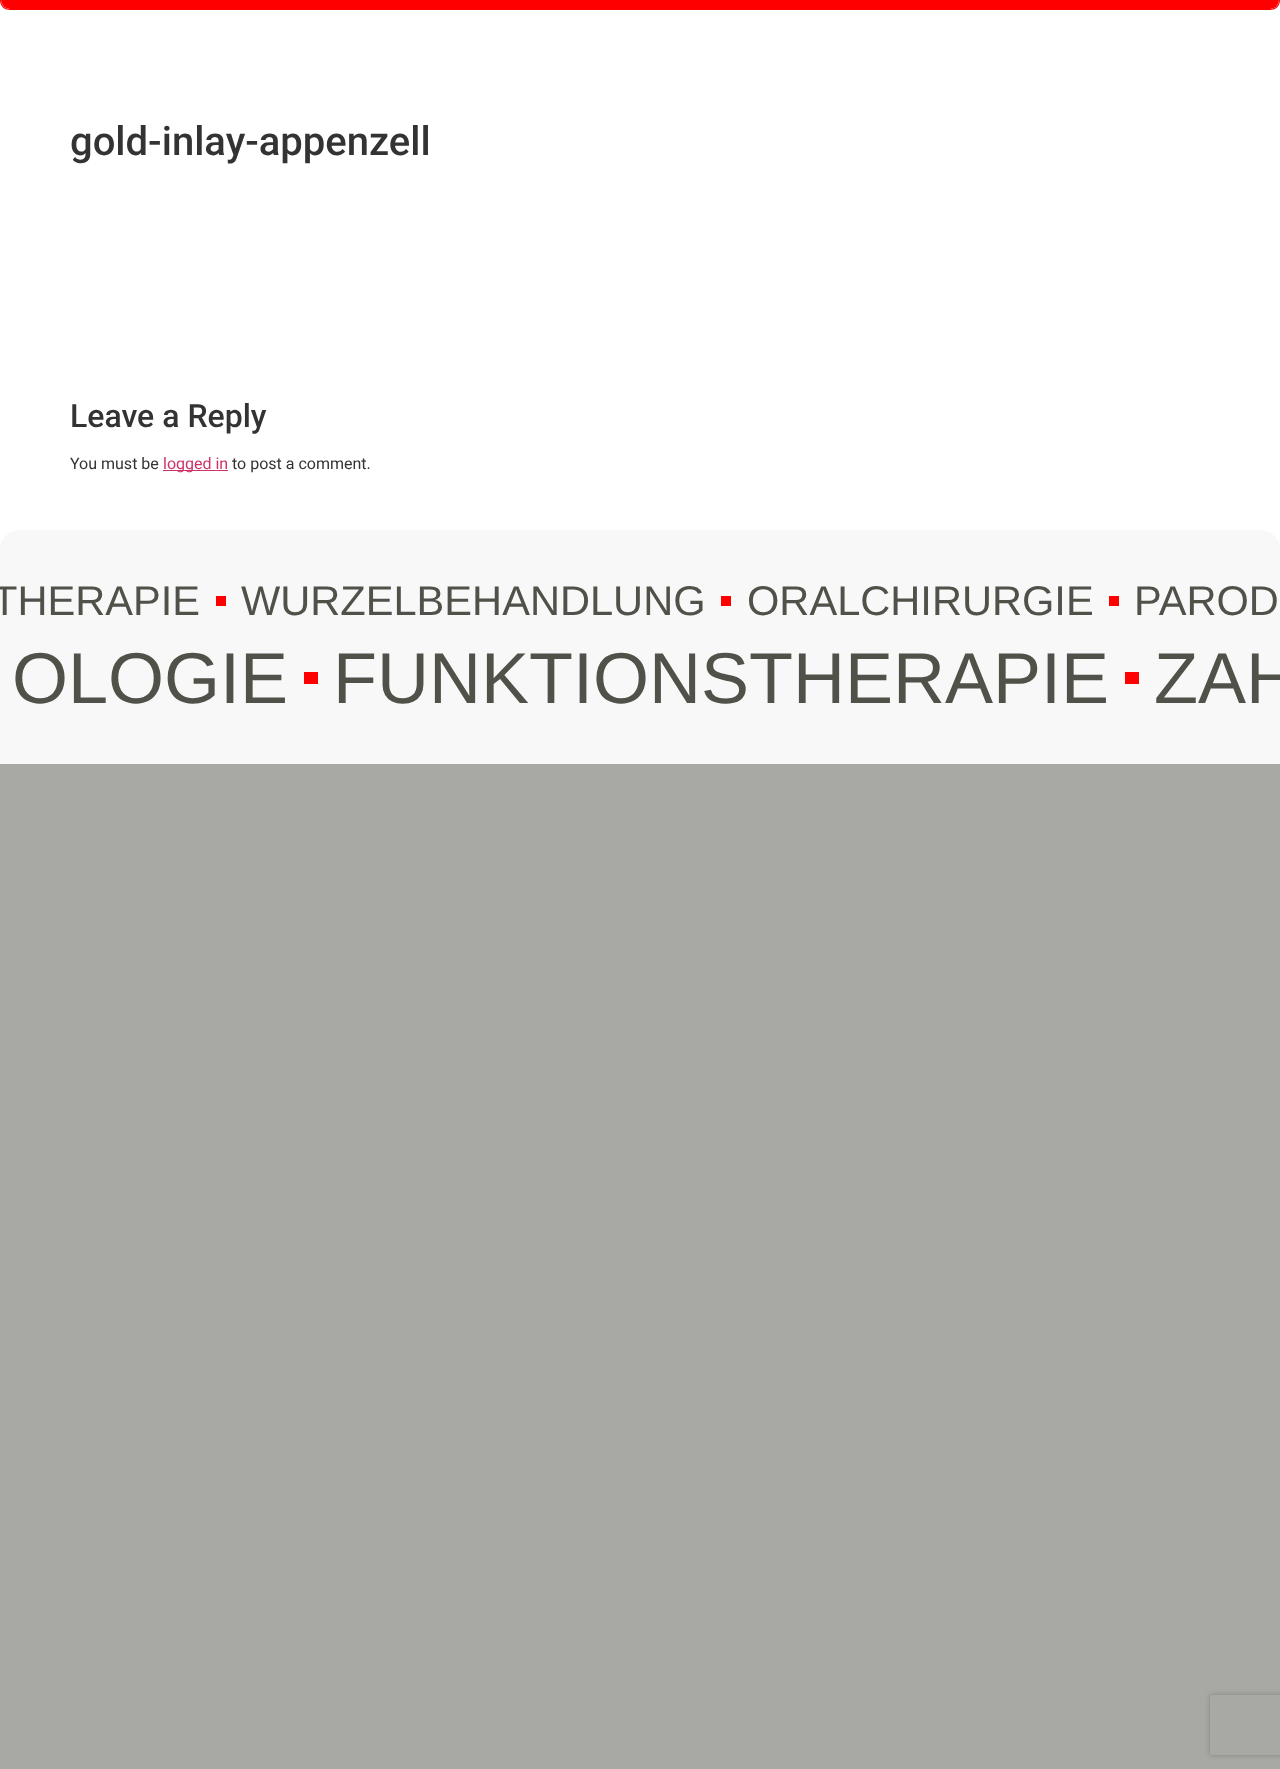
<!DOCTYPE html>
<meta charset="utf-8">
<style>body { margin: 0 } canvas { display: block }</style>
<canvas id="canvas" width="1280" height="1769"></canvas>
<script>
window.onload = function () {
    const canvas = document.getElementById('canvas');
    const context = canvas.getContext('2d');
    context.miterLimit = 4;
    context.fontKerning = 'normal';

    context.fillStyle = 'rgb(255, 255, 255)';
    context.fillRect(0, 0, 1280, 1769);
    context.fillStyle = 'rgb(255, 0, 0)';
    context.beginPath();
    context.roundRect(1, 0, 1278, 9, [0, 0, 9, 9]);
    context.fill();
    context.beginPath();
    context.moveTo(0, 0);
    context.lineTo(1280, 0);
    context.bezierCurveTo(1280, 6, 1276, 10, 1270, 10);
    context.lineTo(10, 10);
    context.bezierCurveTo(4, 10, 0, 6, 0, 0);
    context.closePath();
    context.moveTo(1, 0);
    context.lineTo(1279, 0);
    context.bezierCurveTo(1279, 5, 1275, 9, 1270, 9);
    context.lineTo(10, 9);
    context.bezierCurveTo(5, 9, 1, 5, 1, 0);
    context.closePath();
    context.fill('evenodd');
    context.fillStyle = 'rgb(204, 51, 102)';
    context.fillRect(163, 470, 65, 1);
    context.fillStyle = 'rgb(248, 248, 248)';
    context.beginPath();
    context.roundRect(0, 530, 1280, 234, [20, 20, 0, 0]);
    context.fill();
    context.fillStyle = 'rgb(255, 0, 0)';
    context.fillRect(216, 596, 10, 10);
    context.fillRect(721, 596, 10, 10);
    context.fillRect(1109, 596, 10, 10);
    context.fillRect(304, 672, 14, 12);
    context.fillRect(1125, 672, 14, 12);
    context.fillStyle = 'rgb(168, 168, 164)';
    context.fillRect(0, 764, 1280, 1005);
    context.save();
    context.beginPath();
    context.moveTo(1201, 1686);
    context.lineTo(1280, 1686);
    context.lineTo(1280, 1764);
    context.lineTo(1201, 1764);
    context.closePath();
    context.moveTo(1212, 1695);
    context.lineTo(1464, 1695);
    context.bezierCurveTo(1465, 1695, 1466, 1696, 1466, 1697);
    context.lineTo(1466, 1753);
    context.bezierCurveTo(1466, 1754, 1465, 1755, 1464, 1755);
    context.lineTo(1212, 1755);
    context.bezierCurveTo(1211, 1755, 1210, 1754, 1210, 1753);
    context.lineTo(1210, 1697);
    context.bezierCurveTo(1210, 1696, 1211, 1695, 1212, 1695);
    context.closePath();
    context.clip('evenodd');
    context.fillStyle = 'rgb(128, 128, 128)';
    context.filter = 'blur(2.5px)';
    context.beginPath();
    context.roundRect(1210, 1695, 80, 60, 2);
    context.fill();
    context.filter = 'none';
    context.restore();
    context.font = '500 40px Roboto';
    context.fillStyle = 'rgb(51, 51, 51)';
    context.fillText('gold-inlay-appenzell', 70, 155);
    context.font = '500 32px Roboto';
    context.fillText('Leave a Reply', 70, 427);
    context.font = '16px Roboto';
    context.fillText('You must be', 70, 469);
    context.fillStyle = 'rgb(204, 51, 102)';
    context.fillText('logged in', 163, 469);
    context.fillStyle = 'rgb(51, 51, 51)';
    context.fillText('to post a comment.', 232, 469);
    context.font = '41.6px Liberation Sans';
    context.fillStyle = 'rgb(80, 81, 73)';
    context.fillText('THERAPIE', -8, 615);
    context.fillText('WURZELBEHANDLUNG', 241, 615);
    context.fillText('ORALCHIRURGIE', 747, 615);
    context.fillText('PAROD', 1134, 615);
    context.font = '72px Liberation Sans';
    context.fillText('OLOGIE', 12, 703);
    context.fillText('FUNKTIONSTHERAPIE', 333, 703);
    context.fillText('ZAH', 1154, 703);
};
</script>
